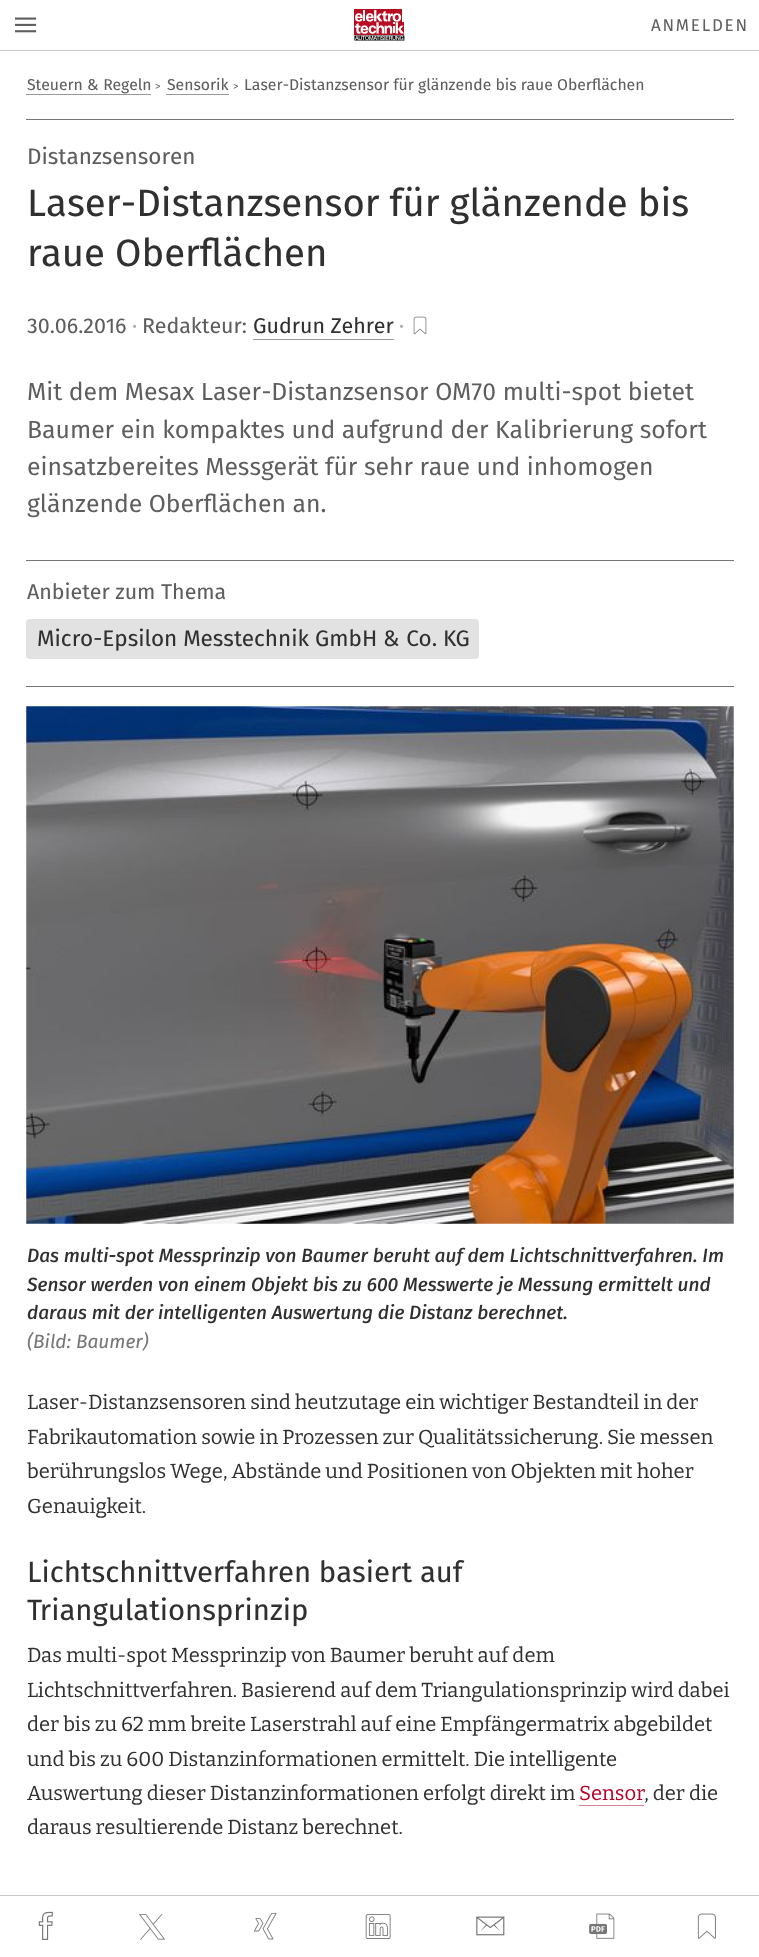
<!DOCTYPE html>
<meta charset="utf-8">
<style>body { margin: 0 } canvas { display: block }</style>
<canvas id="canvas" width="759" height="1957"></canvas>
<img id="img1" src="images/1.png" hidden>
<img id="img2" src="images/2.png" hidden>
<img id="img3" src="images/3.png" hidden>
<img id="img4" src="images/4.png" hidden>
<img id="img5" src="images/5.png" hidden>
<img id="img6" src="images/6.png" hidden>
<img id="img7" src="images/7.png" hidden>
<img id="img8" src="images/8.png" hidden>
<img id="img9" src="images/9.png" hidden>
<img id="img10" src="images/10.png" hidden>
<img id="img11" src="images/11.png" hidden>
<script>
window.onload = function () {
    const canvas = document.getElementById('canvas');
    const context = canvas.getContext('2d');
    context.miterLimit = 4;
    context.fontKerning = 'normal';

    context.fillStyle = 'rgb(255, 255, 255)';
    context.fillRect(0, 0, 759, 1957);
    context.fillStyle = 'rgb(198, 198, 198)';
    context.fillRect(0, 50, 759, 1);
    context.drawImage(document.getElementById('img1'), 15, 17, 22, 16);
    context.drawImage(document.getElementById('img2'), 354, 9, 51, 32);
    context.fillStyle = 'rgb(118, 118, 118)';
    context.fillRect(26, 119, 708, 1);
    context.fillStyle = 'rgb(152, 152, 152)';
    context.fillRect(26, 94, 125, 1);
    context.fillRect(166, 94, 63, 1);
    context.fillRect(253, 339, 141, 1);
    context.drawImage(document.getElementById('img3'), 413, 316, 14, 19);
    context.fillStyle = 'rgb(118, 118, 118)';
    context.fillRect(26, 560, 708, 1);
    context.fillRect(26, 686, 708, 1);
    context.fillStyle = 'rgb(226, 226, 226)';
    context.beginPath();
    context.roundRect(26, 619, 453, 40, 4);
    context.fill();
    context.drawImage(document.getElementById('img4'), 26, 706, 708, 518);
    context.fillStyle = 'rgb(220, 129, 149)';
    context.fillRect(579, 1805, 65, 1);
    context.fillStyle = 'rgb(198, 198, 198)';
    context.fillRect(0, 1895, 759, 1);
    context.drawImage(document.getElementById('img5'), 38, 1911, 15, 29);
    context.drawImage(document.getElementById('img6'), 139, 1914, 27, 26);
    context.drawImage(document.getElementById('img7'), 254, 1912, 23, 28);
    context.drawImage(document.getElementById('img8'), 365, 1914, 26, 25);
    context.drawImage(document.getElementById('img9'), 476, 1916, 29, 20);
    context.drawImage(document.getElementById('img10'), 589, 1913, 26, 26);
    context.drawImage(document.getElementById('img11'), 697, 1913, 19, 26);
    context.letterSpacing = '1.75px';
    context.font = '17px "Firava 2"';
    context.fillStyle = 'rgb(94, 94, 94)';
    context.fillText('ANMELDEN', 651, 31);
    context.letterSpacing = '0px';
    context.font = '15.75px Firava';
    context.fillText('Steuern & Regeln', 27, 90);
    context.font = '11px Firava';
    context.fillText('>', 155, 90);
    context.font = '15.75px Firava';
    context.fillText('Sensorik', 167, 90);
    context.font = '11px Firava';
    context.fillText('>', 233, 90);
    context.font = '15.75px Firava';
    context.fillText('Laser-Distanzsensor für glänzende bis raue Oberflächen', 244, 90);
    context.font = '22.5px Firava';
    context.fillText('Distanzsensoren', 27, 164);
    context.font = '38.25px Firava';
    context.fillStyle = 'rgb(48, 48, 48)';
    context.fillText('Laser-Distanzsensor für glänzende bis', 27, 216);
    context.fillText('raue Oberflächen', 27, 266);
    context.font = '21.4px Firava';
    context.fillStyle = 'rgb(94, 94, 94)';
    context.fillText('30.06.2016', 27, 333);
    context.fillStyle = 'rgb(171, 171, 171)';
    context.fillText('·', 132, 333);
    context.fillStyle = 'rgb(94, 94, 94)';
    context.fillText('Redakteur:', 142, 333);
    context.fillStyle = 'rgb(48, 48, 48)';
    context.fillText('Gudrun Zehrer', 253, 333);
    context.fillStyle = 'rgb(171, 171, 171)';
    context.fillText('·', 399, 333);
    context.font = '24.75px "Firava 2"';
    context.fillStyle = 'rgb(94, 94, 94)';
    context.fillText('Mit dem Mesax Laser-Distanzsensor OM70 multi-spot bietet', 27, 400);
    context.fillText('Baumer ein kompaktes und aufgrund der Kalibrierung sofort', 27, 438);
    context.fillText('einsatzbereites Messgerät für sehr raue und inhomogen', 27, 475);
    context.fillText('glänzende Oberflächen an.', 27, 512);
    context.font = '21.4px Firava';
    context.fillText('Anbieter zum Thema', 27, 599);
    context.font = '22.5px Firava';
    context.fillStyle = 'rgb(48, 48, 48)';
    context.fillText('Micro-Epsilon Messtechnik GmbH & Co. KG', 37, 646);
    context.font = 'italic 500 19.1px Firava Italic';
    context.fillText('Das multi-spot Messprinzip von Baumer beruht auf dem Lichtschnittverfahren. Im', 27, 1262);
    context.fillText('Sensor werden von einem Objekt bis zu 600 Messwerte je Messung ermittelt und', 27, 1291);
    context.fillText('daraus mit der intelligenten Auswertung die Distanz berechnet.', 27, 1319);
    context.font = 'italic 19.1px Firava Italic';
    context.fillStyle = 'rgb(118, 118, 118)';
    context.fillText('(Bild: Baumer)', 27, 1348);
    context.font = '20.25px Bitter';
    context.fillStyle = 'rgb(48, 48, 48)';
    context.fillText('Laser-Distanzsensoren sind heutzutage ein wichtiger Bestandteil in der', 27, 1409);
    context.fillText('Fabrikautomation sowie in Prozessen zur Qualitätssicherung. Sie messen', 27, 1444);
    context.fillText('berührungslos Wege, Abstände und Positionen von Objekten mit hoher', 27, 1478);
    context.fillText('Genauigkeit.', 27, 1513);
    context.font = '29.25px Firava';
    context.fillText('Lichtschnittverfahren basiert auf', 27, 1582);
    context.fillText('Triangulationsprinzip', 27, 1620);
    context.font = '20.25px Bitter';
    context.fillText('Das multi-spot Messprinzip von Baumer beruht auf dem', 27, 1662);
    context.fillText('Lichtschnittverfahren. Basierend auf dem Triangulationsprinzip wird dabei', 27, 1697);
    context.fillText('der bis zu 62 mm breite Laserstrahl auf eine Empfängermatrix abgebildet', 27, 1731);
    context.fillText('und bis zu 600 Distanzinformationen ermittelt. Die intelligente', 27, 1766);
    context.fillText('Auswertung dieser Distanzinformationen erfolgt direkt im', 27, 1800);
    context.fillStyle = 'rgb(184, 2, 42)';
    context.fillText('Sensor', 579, 1800);
    context.fillStyle = 'rgb(48, 48, 48)';
    context.fillText(', der die', 644, 1800);
    context.fillText('daraus resultierende Distanz berechnet.', 27, 1834);
};
</script>
